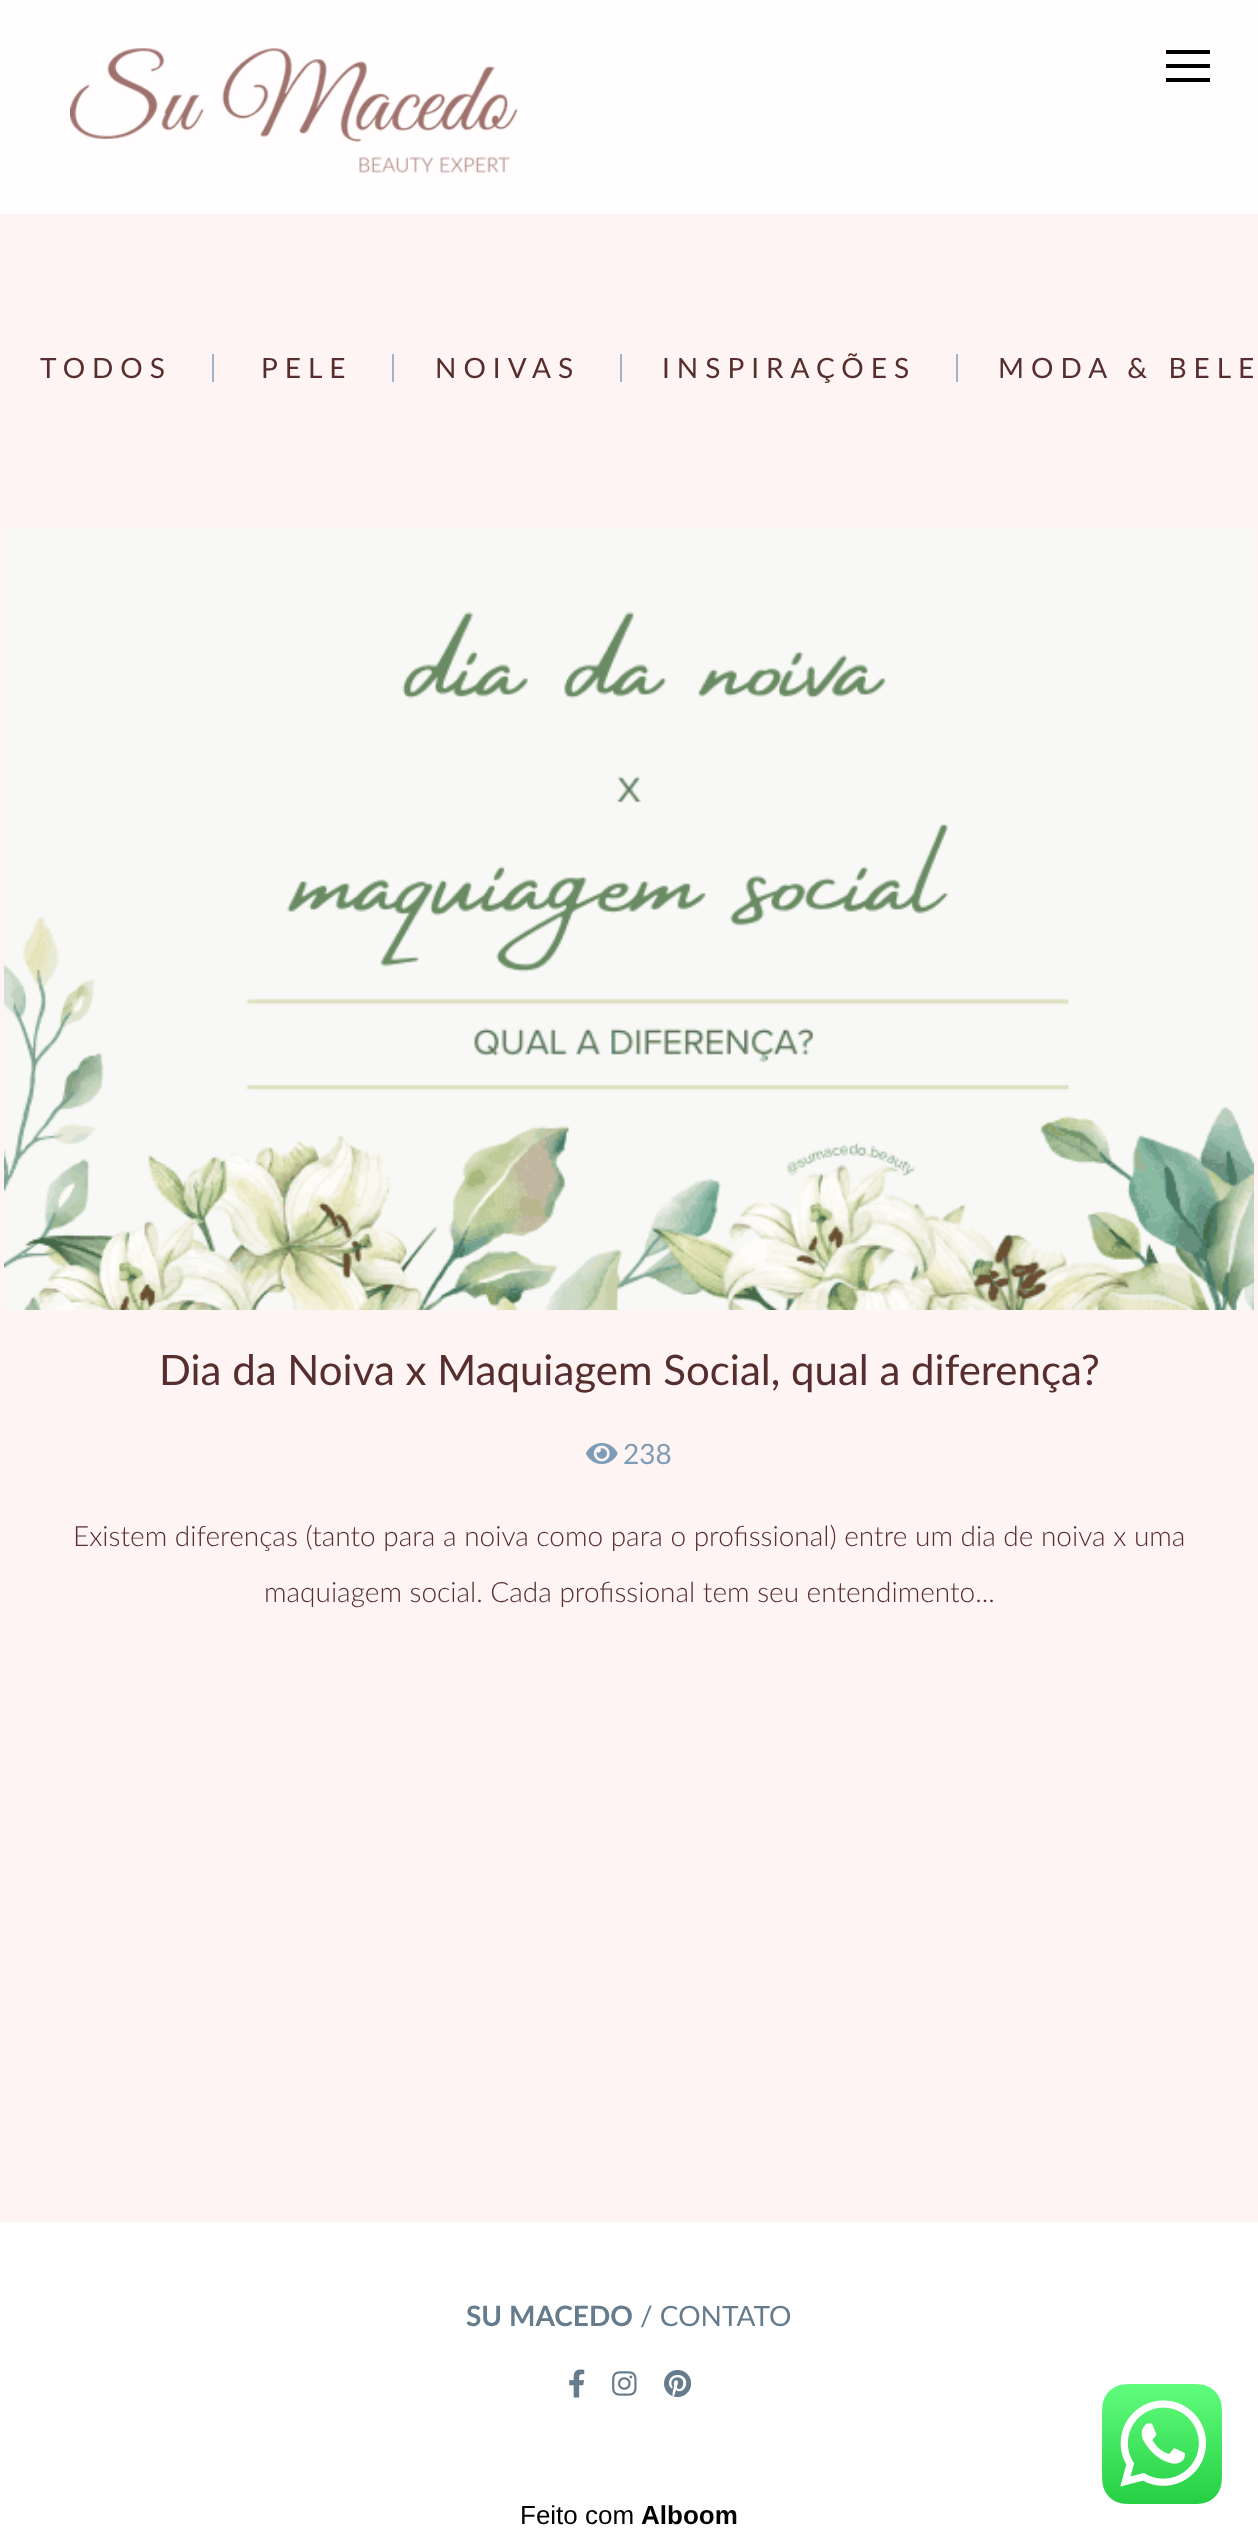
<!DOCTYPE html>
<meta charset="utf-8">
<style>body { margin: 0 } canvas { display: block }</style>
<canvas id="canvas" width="1258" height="2547"></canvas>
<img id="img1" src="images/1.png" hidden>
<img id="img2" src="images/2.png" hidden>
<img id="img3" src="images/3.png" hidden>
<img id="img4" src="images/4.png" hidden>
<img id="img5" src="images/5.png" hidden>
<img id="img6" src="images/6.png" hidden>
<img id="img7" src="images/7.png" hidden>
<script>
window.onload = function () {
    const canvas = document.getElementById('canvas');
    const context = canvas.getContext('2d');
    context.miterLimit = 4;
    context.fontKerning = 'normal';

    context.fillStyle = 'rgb(254, 244, 243)';
    context.fillRect(0, 0, 1258, 2547);
    context.fillStyle = 'rgb(255, 253, 253)';
    context.fillRect(0, 0, 1258, 214);
    context.drawImage(document.getElementById('img1'), 70, 48, 448, 125);
    context.fillStyle = 'rgb(0, 0, 0)';
    context.fillRect(1166, 50, 44, 4);
    context.fillRect(1166, 64, 44, 4);
    context.fillRect(1166, 78, 44, 4);
    context.fillStyle = 'rgb(159, 180, 201)';
    context.fillRect(212, 354, 2, 28);
    context.fillRect(392, 354, 2, 28);
    context.fillRect(620, 354, 2, 28);
    context.fillRect(956, 354, 2, 28);
    context.drawImage(document.getElementById('img2'), 4, 528, 1250, 782);
    context.drawImage(document.getElementById('img3'), 586, 1443, 32, 21);
    context.fillStyle = 'rgb(255, 255, 255)';
    context.fillRect(0, 2222, 1258, 325);
    context.drawImage(document.getElementById('img4'), 569, 2369, 16, 29);
    context.drawImage(document.getElementById('img5'), 612, 2371, 25, 25);
    context.drawImage(document.getElementById('img6'), 664, 2369, 28, 29);
    context.drawImage(document.getElementById('img7'), 1102, 2384, 120, 120);
    context.letterSpacing = '7px';
    context.font = '28px Lato';
    context.fillStyle = 'rgb(86, 46, 45)';
    context.fillText('TODOS', 40, 378);
    context.fillText('PELE', 261, 378);
    context.fillText('NOIVAS', 435, 378);
    context.fillText('INSPIRAÇÕES', 662, 378);
    context.fillText('MODA & BELE', 998, 378);
    context.letterSpacing = '0px';
    context.font = '42px Lato';
    context.fillText('Dia da Noiva x Maquiagem Social, qual a diferença?', 159, 1385);
    context.font = '28px Lato';
    context.fillStyle = 'rgb(126, 155, 183)';
    context.fillText('238', 623, 1464);
    context.font = '300 28px Lato';
    context.fillStyle = 'rgb(86, 46, 45)';
    context.fillText('Existem diferenças (tanto para a noiva como para o profissional) entre um dia de noiva x uma', 73, 1546);
    context.fillText('maquiagem social. Cada profissional tem seu entendimento...', 264, 1602);
    context.font = 'bold 28px Lato';
    context.fillStyle = 'rgb(102, 124, 140)';
    context.fillText('SU MACEDO', 466, 2326);
    context.font = '28px Lato';
    context.fillText('/ CONTATO', 640, 2326);
    context.font = '26px Liberation Sans';
    context.fillStyle = 'rgb(0, 0, 0)';
    context.fillText('Feito com', 520, 2524);
    context.font = 'bold 26px Liberation Sans';
    context.fillText('Alboom', 641, 2524);
};
</script>
